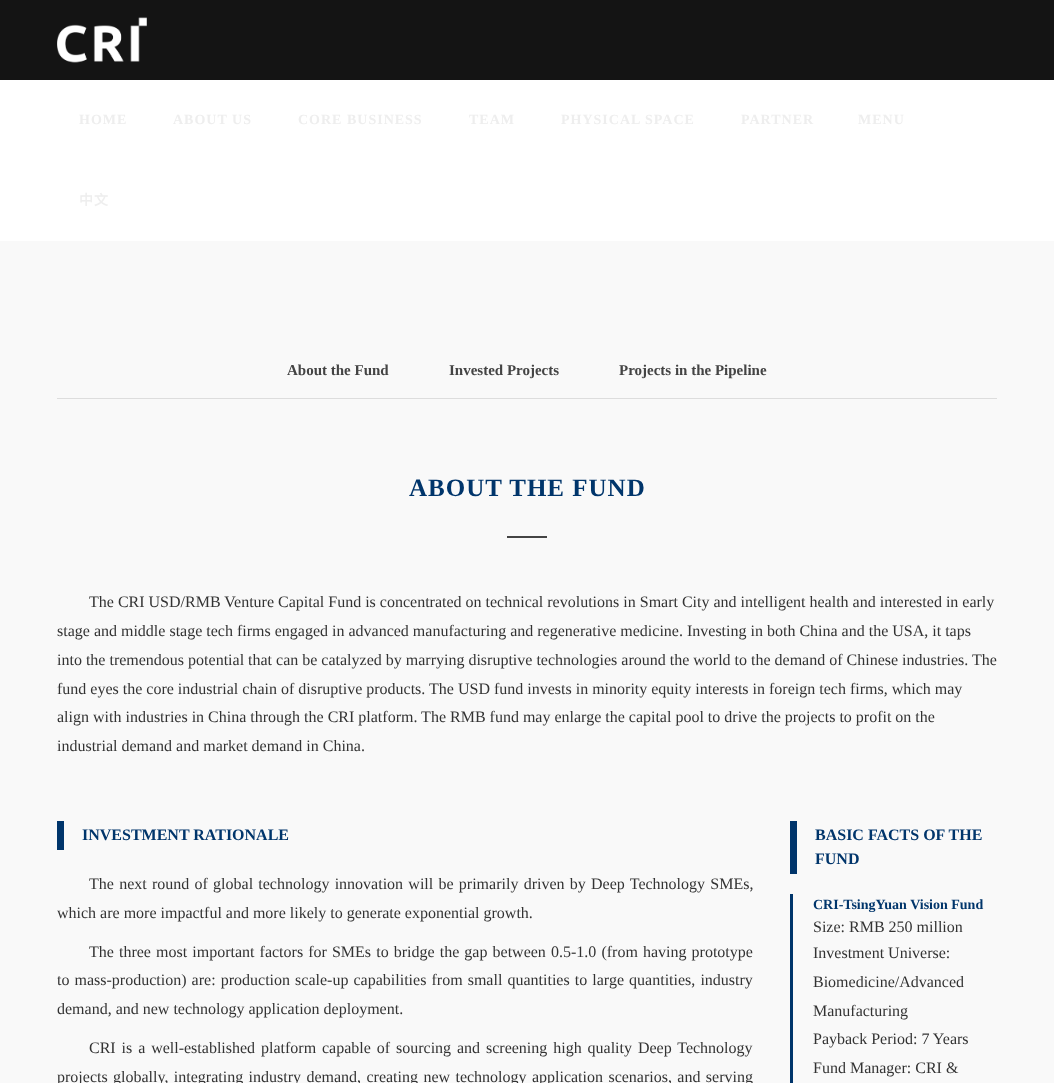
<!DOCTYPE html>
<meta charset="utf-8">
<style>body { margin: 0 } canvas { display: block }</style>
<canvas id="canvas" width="1054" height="1083"></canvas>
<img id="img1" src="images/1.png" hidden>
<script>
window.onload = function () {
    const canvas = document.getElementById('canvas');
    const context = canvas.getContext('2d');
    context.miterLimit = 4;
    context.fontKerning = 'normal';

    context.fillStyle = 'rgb(255, 255, 255)';
    context.fillRect(0, 0, 1054, 1083);
    context.fillStyle = 'rgb(20, 20, 20)';
    context.fillRect(0, 0, 1054, 80);
    context.drawImage(document.getElementById('img1'), 57, 17, 90, 46);
    context.fillStyle = 'rgb(249, 249, 249)';
    context.fillRect(0, 241, 1054, 842);
    context.fillStyle = 'rgb(221, 221, 221)';
    context.fillRect(57, 398, 940, 1);
    context.fillStyle = 'rgb(68, 68, 68)';
    context.fillRect(507, 536, 40, 2);
    context.fillStyle = 'rgb(0, 53, 107)';
    context.fillRect(57, 821, 7, 29);
    context.fillRect(790, 821, 7, 53);
    context.fillRect(790, 894, 3, 189);
    context.letterSpacing = '1px';
    context.font = 'bold 14px Liberation Serif';
    context.fillStyle = 'rgb(238, 238, 238)';
    context.fillText('HOME', 79, 124);
    context.fillText('ABOUT US', 173, 124);
    context.fillText('CORE BUSINESS', 298, 124);
    context.fillText('TEAM', 469, 124);
    context.fillText('PHYSICAL SPACE', 561, 124);
    context.fillText('PARTNER', 741, 124);
    context.fillText('MENU', 858, 124);
    context.font = 'bold 14px Noto Sans CJK SC';
    context.fillText('中文', 79, 205);
    context.letterSpacing = '0px';
    context.font = 'bold 15px Liberation Serif';
    context.fillStyle = 'rgb(68, 68, 68)';
    context.fillText('About the Fund', 287, 375);
    context.fillText('Invested Projects', 449, 375);
    context.fillText('Projects in the Pipeline', 619, 375);
    context.letterSpacing = '1px';
    context.font = 'bold 25px Liberation Serif';
    context.fillStyle = 'rgb(0, 53, 107)';
    context.fillText('ABOUT THE FUND', 409, 496);
    context.letterSpacing = '0px';
    context.font = '16px Liberation Serif';
    context.fillStyle = 'rgb(51, 51, 51)';
    context.fillText('The CRI USD/RMB Venture Capital Fund is concentrated on technical revolutions in Smart City and intelligent health and interested in early', 89, 607);
    context.fillText('stage and middle stage tech firms engaged in advanced manufacturing and regenerative medicine. Investing in both China and the USA, it taps', 57, 636);
    context.fillText('into the tremendous potential that can be catalyzed by marrying disruptive technologies around the world to the demand of Chinese industries. The', 57, 665);
    context.fillText('fund eyes the core industrial chain of disruptive products. The USD fund invests in minority equity interests in foreign tech firms, which may', 57, 694);
    context.fillText('align with industries in China through the CRI platform. The RMB fund may enlarge the capital pool to drive the projects to profit on the', 57, 722);
    context.fillText('industrial demand and market demand in China.', 57, 751);
    context.font = 'bold 16px Liberation Serif';
    context.fillStyle = 'rgb(0, 53, 107)';
    context.fillText('INVESTMENT RATIONALE', 82, 840);
    context.wordSpacing = '1.25px';
    context.font = '16px Liberation Serif';
    context.fillStyle = 'rgb(51, 51, 51)';
    context.fillText('The next round of global technology innovation will be primarily driven by Deep Technology SMEs,', 89, 889);
    context.wordSpacing = '0px';
    context.fillText('which are more impactful and more likely to generate exponential growth.', 57, 918);
    context.wordSpacing = '1.1px';
    context.fillText('The three most important factors for SMEs to bridge the gap between 0.5-1.0 (from having prototype', 89, 957);
    context.fillText('to mass-production) are: production scale-up capabilities from small quantities to large quantities, industry', 57, 985);
    context.wordSpacing = '0px';
    context.fillText('demand, and new technology application deployment.', 57, 1014);
    context.wordSpacing = '1.9px';
    context.fillText('CRI is a well-established platform capable of sourcing and screening high quality Deep Technology', 89, 1053);
    context.wordSpacing = '1.4px';
    context.fillText('projects globally, integrating industry demand, creating new technology application scenarios, and serving', 57, 1082);
    context.wordSpacing = '0px';
    context.font = 'bold 16px Liberation Serif';
    context.fillStyle = 'rgb(0, 53, 107)';
    context.fillText('BASIC FACTS OF THE', 815, 840);
    context.fillText('FUND', 815, 864);
    context.font = 'bold 14px Liberation Serif';
    context.fillText('CRI-TsingYuan Vision Fund', 813, 909);
    context.font = '16px Liberation Serif';
    context.fillStyle = 'rgb(51, 51, 51)';
    context.fillText('Size: RMB 250 million', 813, 932);
    context.fillText('Investment Universe:', 813, 958);
    context.fillText('Biomedicine/Advanced', 813, 987);
    context.fillText('Manufacturing', 813, 1016);
    context.fillText('Payback Period: 7 Years', 813, 1044);
    context.fillText('Fund Manager: CRI &', 813, 1073);
};
</script>
